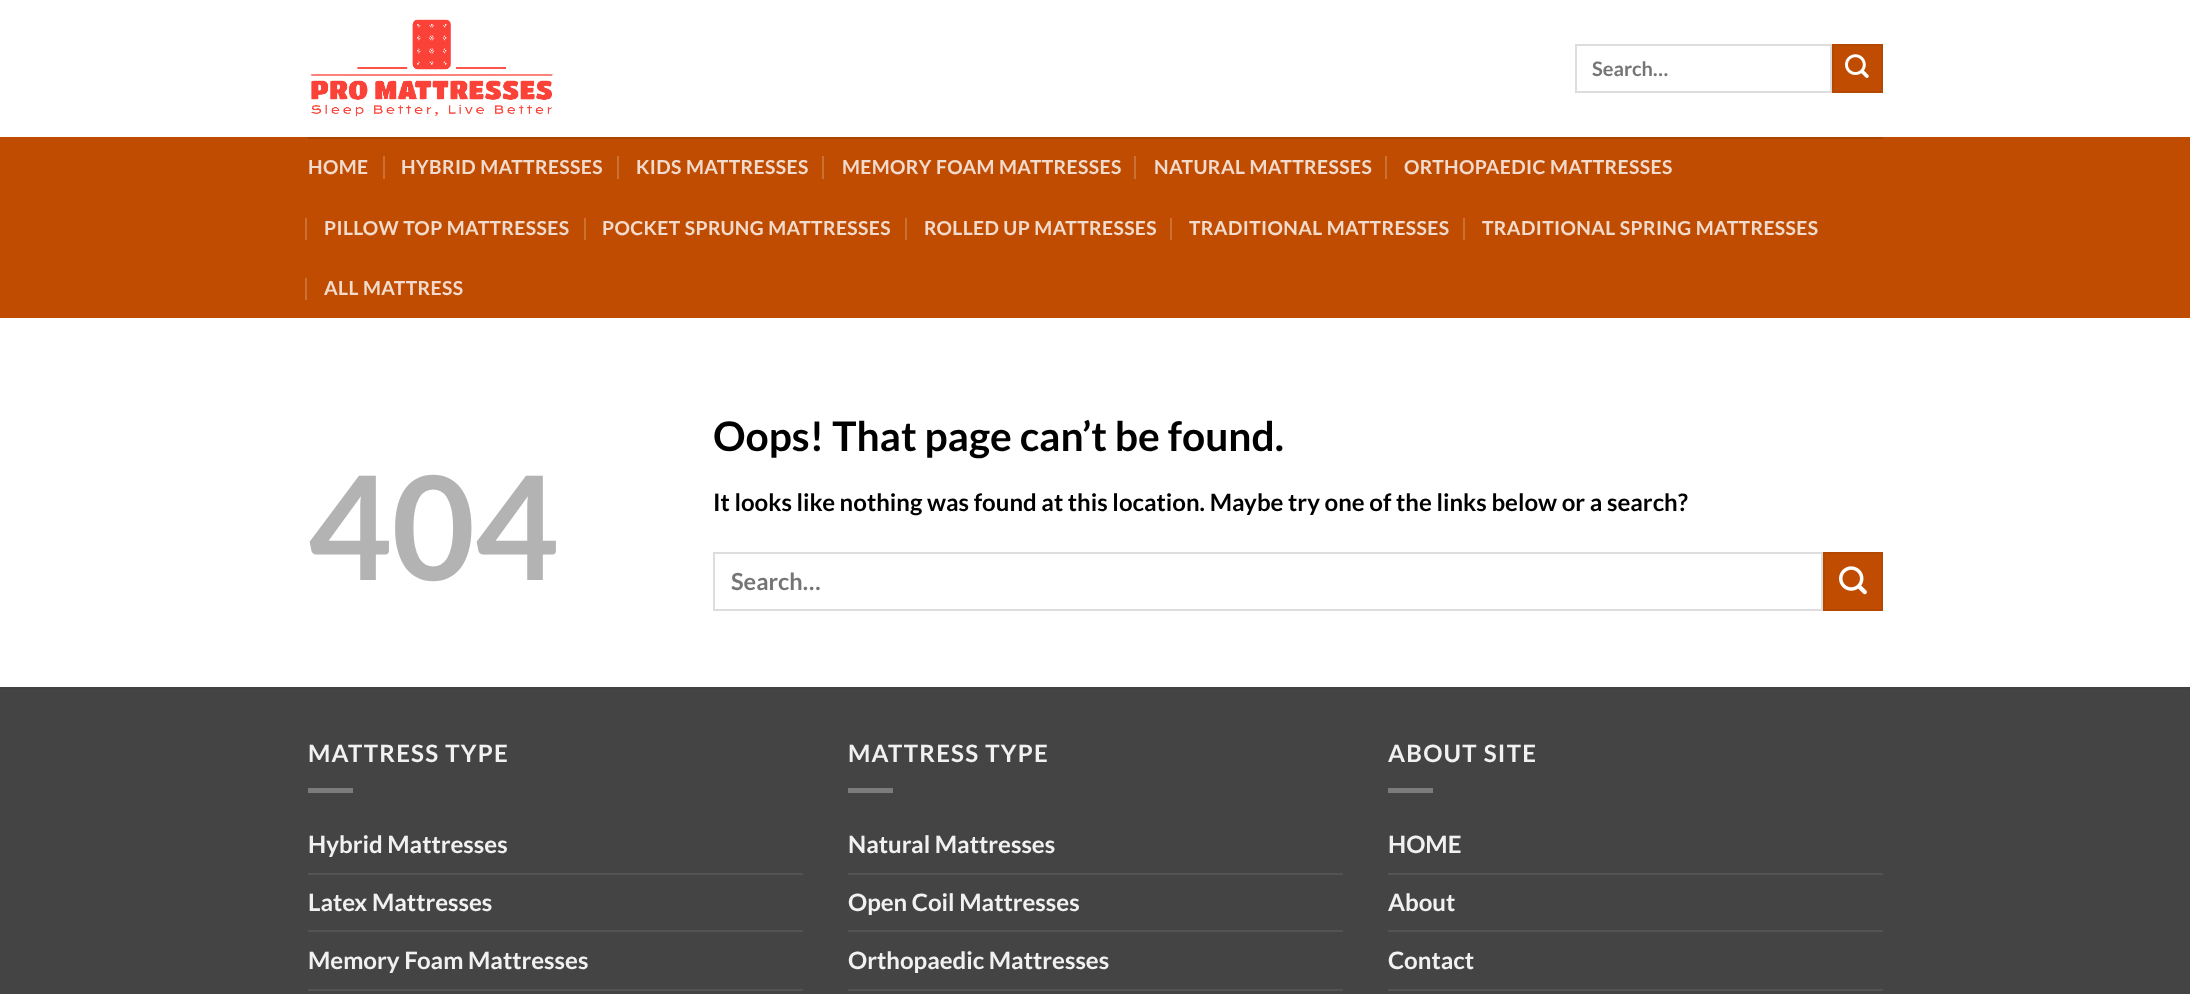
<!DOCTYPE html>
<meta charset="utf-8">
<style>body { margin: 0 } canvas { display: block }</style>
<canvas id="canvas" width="2190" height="994"></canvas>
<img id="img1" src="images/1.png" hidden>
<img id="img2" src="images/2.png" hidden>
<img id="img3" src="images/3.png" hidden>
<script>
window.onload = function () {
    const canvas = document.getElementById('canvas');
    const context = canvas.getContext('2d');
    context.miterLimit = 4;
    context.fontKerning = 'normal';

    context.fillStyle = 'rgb(255, 255, 255)';
    context.fillRect(0, 0, 2190, 994);
    context.drawImage(document.getElementById('img1'), 311, 19, 242, 98);
    context.strokeStyle = 'rgb(221, 221, 221)';
    context.lineWidth = 2;
    context.strokeRect(1576, 45, 255, 47);
    context.fillStyle = 'rgb(191, 76, 0)';
    context.beginPath();
    context.rect(1833, 45, 49, 47);
    context.fill();
    context.strokeStyle = 'rgb(181, 72, 0)';
    context.stroke();
    context.drawImage(document.getElementById('img2'), 1845, 54, 24, 24);
    context.fillRect(0, 137, 2190, 181);
    context.fillStyle = 'rgb(172, 68, 0)';
    context.fillRect(308, 137, 1575, 2);
    context.fillStyle = 'rgb(204, 112, 51)';
    context.fillRect(383, 156, 2, 23);
    context.fillRect(617, 156, 2, 23);
    context.fillRect(822, 156, 2, 23);
    context.fillRect(1134, 156, 2, 23);
    context.fillRect(1385, 156, 2, 23);
    context.fillRect(305, 218, 2, 22);
    context.fillRect(584, 218, 2, 22);
    context.fillRect(905, 218, 2, 22);
    context.fillRect(1170, 218, 2, 22);
    context.fillRect(1463, 218, 2, 22);
    context.fillRect(305, 278, 2, 22);
    context.strokeStyle = 'rgb(221, 221, 221)';
    context.strokeRect(714, 553, 1108, 57);
    context.fillStyle = 'rgb(191, 76, 0)';
    context.beginPath();
    context.rect(1824, 553, 58, 57);
    context.fill();
    context.strokeStyle = 'rgb(181, 72, 0)';
    context.stroke();
    context.drawImage(document.getElementById('img3'), 1839, 566, 28, 29);
    context.fillStyle = 'rgb(68, 68, 68)';
    context.fillRect(0, 689, 2190, 305);
    context.fillStyle = 'rgb(65, 65, 65)';
    context.fillRect(0, 687, 2190, 2);
    context.fillStyle = 'rgb(124, 124, 124)';
    context.fillRect(308, 788, 45, 5);
    context.fillStyle = 'rgb(83, 83, 83)';
    context.fillRect(308, 873, 495, 2);
    context.fillRect(308, 930, 495, 2);
    context.fillRect(308, 989, 495, 2);
    context.fillStyle = 'rgb(124, 124, 124)';
    context.fillRect(848, 788, 45, 5);
    context.fillStyle = 'rgb(83, 83, 83)';
    context.fillRect(848, 873, 495, 2);
    context.fillRect(848, 930, 495, 2);
    context.fillRect(848, 989, 495, 2);
    context.fillStyle = 'rgb(124, 124, 124)';
    context.fillRect(1388, 788, 45, 5);
    context.fillStyle = 'rgb(83, 83, 83)';
    context.fillRect(1388, 873, 495, 2);
    context.fillRect(1388, 930, 495, 2);
    context.fillRect(1388, 989, 495, 2);
    context.font = 'bold 20px Lato';
    context.fillStyle = 'rgb(117, 117, 117)';
    context.fillText('Search…', 1592, 76);
    context.letterSpacing = '0.4px';
    context.font = 'bold 19.25px Lato';
    context.fillStyle = 'rgb(242, 219, 204)';
    context.fillText('HOME', 308, 174);
    context.fillText('HYBRID MATTRESSES', 401, 174);
    context.fillText('KIDS MATTRESSES', 636, 174);
    context.fillText('MEMORY FOAM MATTRESSES', 842, 174);
    context.fillText('NATURAL MATTRESSES', 1154, 174);
    context.fillText('ORTHOPAEDIC MATTRESSES', 1404, 174);
    context.fillText('PILLOW TOP MATTRESSES', 324, 235);
    context.fillText('POCKET SPRUNG MATTRESSES', 602, 235);
    context.fillText('ROLLED UP MATTRESSES', 924, 235);
    context.fillText('TRADITIONAL MATTRESSES', 1189, 235);
    context.fillText('TRADITIONAL SPRING MATTRESSES', 1482, 235);
    context.fillText('ALL MATTRESS', 324, 295);
    context.letterSpacing = '0px';
    context.font = 'bold 144px Lato';
    context.fillStyle = 'rgb(179, 179, 179)';
    context.fillText('404', 308, 580);
    context.font = 'bold 40.75px Lato';
    context.fillStyle = 'rgb(0, 0, 0)';
    context.fillText('Oops! That page can’t be found.', 713, 451);
    context.font = 'bold 24px Lato';
    context.fillText('It looks like nothing was found at this location. Maybe try one of the links below or a search?', 713, 511);
    context.font = 'bold 23.5px Lato';
    context.fillStyle = 'rgb(117, 117, 117)';
    context.fillText('Search…', 731, 590);
    context.letterSpacing = '1.25px';
    context.font = 'bold 24px Lato';
    context.fillStyle = 'rgb(241, 241, 241)';
    context.fillText('MATTRESS TYPE', 308, 762);
    context.letterSpacing = '0px';
    context.fillText('Hybrid Mattresses', 308, 853);
    context.fillText('Latex Mattresses', 308, 911);
    context.fillText('Memory Foam Mattresses', 308, 969);
    context.letterSpacing = '1.25px';
    context.fillText('MATTRESS TYPE', 848, 762);
    context.letterSpacing = '0px';
    context.fillText('Natural Mattresses', 848, 853);
    context.fillText('Open Coil Mattresses', 848, 911);
    context.fillText('Orthopaedic Mattresses', 848, 969);
    context.letterSpacing = '1.25px';
    context.fillText('ABOUT SITE', 1388, 762);
    context.letterSpacing = '0px';
    context.fillText('HOME', 1388, 853);
    context.fillText('About', 1388, 911);
    context.fillText('Contact', 1388, 969);
};
</script>
